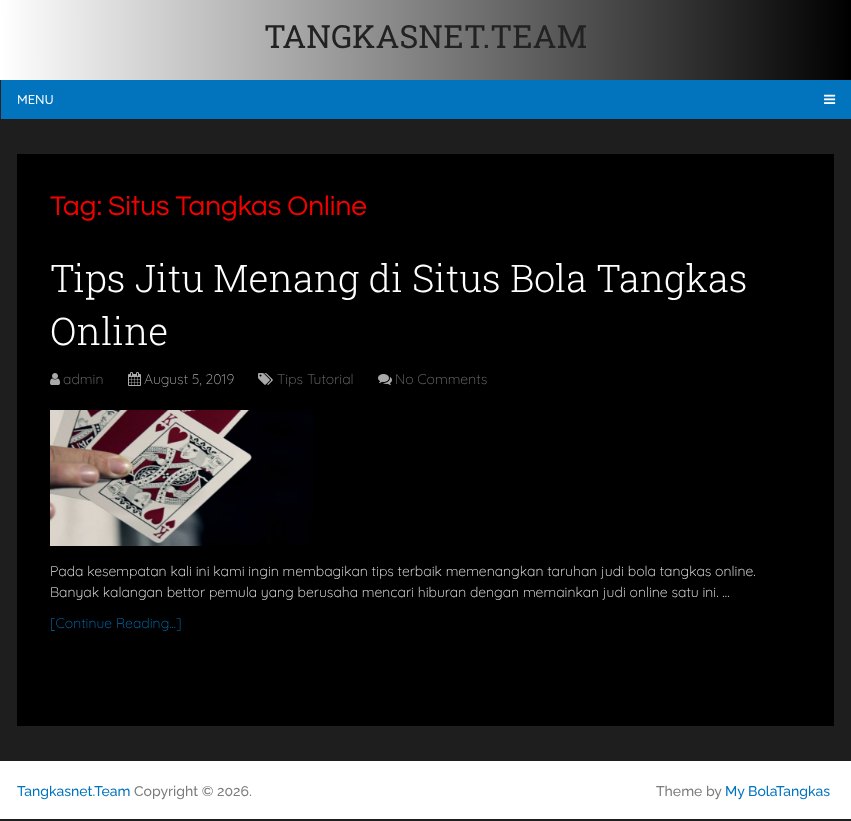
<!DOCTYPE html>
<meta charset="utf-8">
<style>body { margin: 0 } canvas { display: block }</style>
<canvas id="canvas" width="851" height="821"></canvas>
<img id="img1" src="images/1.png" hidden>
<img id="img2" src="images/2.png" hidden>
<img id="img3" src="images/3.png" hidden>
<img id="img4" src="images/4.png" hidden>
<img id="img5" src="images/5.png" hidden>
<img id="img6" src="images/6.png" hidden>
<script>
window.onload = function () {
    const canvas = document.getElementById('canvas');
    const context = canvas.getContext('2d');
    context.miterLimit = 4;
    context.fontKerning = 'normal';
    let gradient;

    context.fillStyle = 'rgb(30, 30, 30)';
    context.fillRect(0, 0, 851, 821);
    gradient = context.createLinearGradient(0, 60, 851, 59);
    gradient.addColorStop(0, 'rgb(255, 255, 255)');
    gradient.addColorStop(1, 'rgb(0, 0, 0)');
    context.fillStyle = gradient;
    context.fillRect(0, 0, 851, 80);
    context.fillStyle = 'rgb(34, 34, 34)';
    context.fillRect(0, 80, 1, 39);
    context.fillStyle = 'rgb(2, 116, 190)';
    context.fillRect(1, 80, 850, 39);
    context.drawImage(document.getElementById('img1'), 824, 94, 12, 10);
    context.fillStyle = 'rgb(0, 0, 0)';
    context.fillRect(17, 154, 817, 572);
    context.drawImage(document.getElementById('img2'), 50, 373, 10, 12);
    context.drawImage(document.getElementById('img3'), 128, 372, 13, 14);
    context.drawImage(document.getElementById('img4'), 258, 373, 15, 12);
    context.drawImage(document.getElementById('img5'), 378, 374, 14, 11);
    context.drawImage(document.getElementById('img6'), 50, 410, 263, 136);
    context.fillStyle = 'rgb(255, 255, 255)';
    context.fillRect(0, 761, 851, 58);
    context.font = '32px Roboto Slab';
    context.fillStyle = 'rgb(34, 34, 34)';
    context.fillText('TANGKASNET.TEAM', 264, 48);
    context.font = '500 13px Quicksand';
    context.fillStyle = 'rgb(255, 255, 255)';
    context.fillText('MENU', 17, 104);
    context.font = '28px Questrial';
    context.fillStyle = 'rgb(245, 0, 0)';
    context.fillText('Tag: Situs Tangkas Online', 50, 215);
    context.font = '300 38px Roboto Slab';
    context.fillStyle = 'rgb(255, 255, 255)';
    context.fillText('Tips Jitu Menang di Situs Bola Tangkas', 50, 292);
    context.fillText('Online', 50, 345);
    context.font = '300 14px Quicksand';
    context.fillStyle = 'rgb(119, 119, 119)';
    context.fillText('admin', 63, 384);
    context.fillStyle = 'rgb(170, 170, 170)';
    context.fillText('August 5, 2019', 144, 384);
    context.fillStyle = 'rgb(119, 119, 119)';
    context.fillText('Tips Tutorial', 277, 384);
    context.fillText('No Comments', 395, 384);
    context.fillStyle = 'rgb(244, 244, 244)';
    context.fillText('Pada kesempatan kali ini kami ingin membagikan tips terbaik memenangkan taruhan judi bola tangkas online.', 50, 576);
    context.fillText('Banyak kalangan bettor pemula yang berusaha mencari hiburan dengan memainkan judi online satu ini. …', 50, 597);
    context.fillStyle = 'rgb(2, 116, 190)';
    context.fillText('[Continue Reading...]', 50, 628);
    context.font = '100 14px Raleway';
    context.fillText('Tangkasnet.Team', 17, 796);
    context.fillStyle = 'rgb(126, 125, 125)';
    context.fillText('Copyright © 2026.', 134, 796);
    context.fillText('Theme by', 656, 796);
    context.fillStyle = 'rgb(2, 116, 190)';
    context.fillText('My BolaTangkas', 725, 796);
};
</script>
